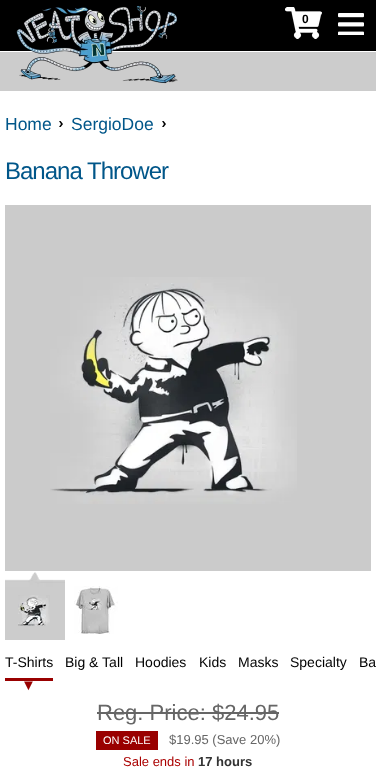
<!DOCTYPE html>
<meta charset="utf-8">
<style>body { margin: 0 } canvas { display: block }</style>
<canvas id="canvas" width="376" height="773"></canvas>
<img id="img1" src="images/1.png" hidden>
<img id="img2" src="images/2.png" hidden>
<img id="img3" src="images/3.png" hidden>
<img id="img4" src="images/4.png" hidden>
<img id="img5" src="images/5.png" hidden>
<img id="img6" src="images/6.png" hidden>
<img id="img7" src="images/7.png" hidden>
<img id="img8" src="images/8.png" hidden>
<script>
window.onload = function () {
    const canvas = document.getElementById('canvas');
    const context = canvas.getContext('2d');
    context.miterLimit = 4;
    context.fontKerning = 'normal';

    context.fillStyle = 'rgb(255, 255, 255)';
    context.fillRect(0, 0, 376, 773);
    context.fillStyle = 'rgb(0, 0, 0)';
    context.fillRect(0, 0, 376, 51);
    context.fillStyle = 'rgb(204, 204, 204)';
    context.fillRect(0, 52, 376, 39);
    context.drawImage(document.getElementById('img1'), 16, 5, 162, 79);
    context.drawImage(document.getElementById('img2'), 285, 7, 37, 32);
    context.drawImage(document.getElementById('img3'), 338, 13, 26, 22);
    context.drawImage(document.getElementById('img4'), 59, 121, 4, 6);
    context.drawImage(document.getElementById('img4'), 162, 121, 4, 6);
    context.fillStyle = 'rgb(203, 203, 203)';
    context.fillRect(5, 205, 366, 366);
    context.drawImage(document.getElementById('img5'), 50, 277, 247, 227);
    context.drawImage(document.getElementById('img6'), 5, 572, 60, 68);
    context.drawImage(document.getElementById('img7'), 18, 595, 32, 31);
    context.drawImage(document.getElementById('img8'), 74, 586, 44, 48);
    context.fillStyle = 'rgb(153, 0, 0)';
    context.fillRect(5, 678, 48, 3);
    context.fillStyle = 'rgb(102, 102, 102)';
    context.fillRect(97, 712, 182, 2);
    context.fillStyle = 'rgb(153, 0, 0)';
    context.fillRect(96, 731, 62, 19);
    context.font = 'bold 12px Liberation Sans';
    context.fillStyle = 'rgb(0, 0, 0)';
    context.fillText('0', 302, 23);
    context.font = '17.5px Liberation Sans';
    context.fillStyle = 'rgb(0, 86, 137)';
    context.fillText('Home', 5, 130);
    context.fillText('SergioDoe', 71, 130);
    context.letterSpacing = '-1px';
    context.font = '24px Liberation Sans';
    context.fillText('Banana Thrower', 5, 179);
    context.letterSpacing = '0px';
    context.font = '14px Liberation Sans';
    context.fillStyle = 'rgb(0, 0, 0)';
    context.fillText('T-Shirts', 5, 667);
    context.font = '15px Liberation Sans';
    context.fillStyle = 'rgb(153, 0, 0)';
    context.fillText('▼', 21, 690);
    context.font = '14px Liberation Sans';
    context.fillStyle = 'rgb(0, 0, 0)';
    context.fillText('Big & Tall', 65, 667);
    context.fillText('Hoodies', 135, 667);
    context.fillText('Kids', 199, 667);
    context.fillText('Masks', 238, 667);
    context.fillText('Specialty', 290, 667);
    context.fillText('Ba', 359, 667);
    context.font = '22px Liberation Sans';
    context.fillStyle = 'rgb(102, 102, 102)';
    context.fillText('Reg. Price: $24.95', 97, 720);
    context.font = '11px Liberation Sans';
    context.fillStyle = 'rgb(255, 255, 255)';
    context.fillText('ON SALE', 103, 744);
    context.font = '13px Liberation Sans';
    context.fillStyle = 'rgb(102, 102, 102)';
    context.fillText('$19.95 (Save 20%)', 169, 744);
    context.fillStyle = 'rgb(170, 0, 0)';
    context.fillText('Sale ends in', 123, 766);
    context.font = 'bold 13px Liberation Sans';
    context.fillStyle = 'rgb(51, 51, 51)';
    context.fillText('17 hours', 198, 766);
};
</script>
